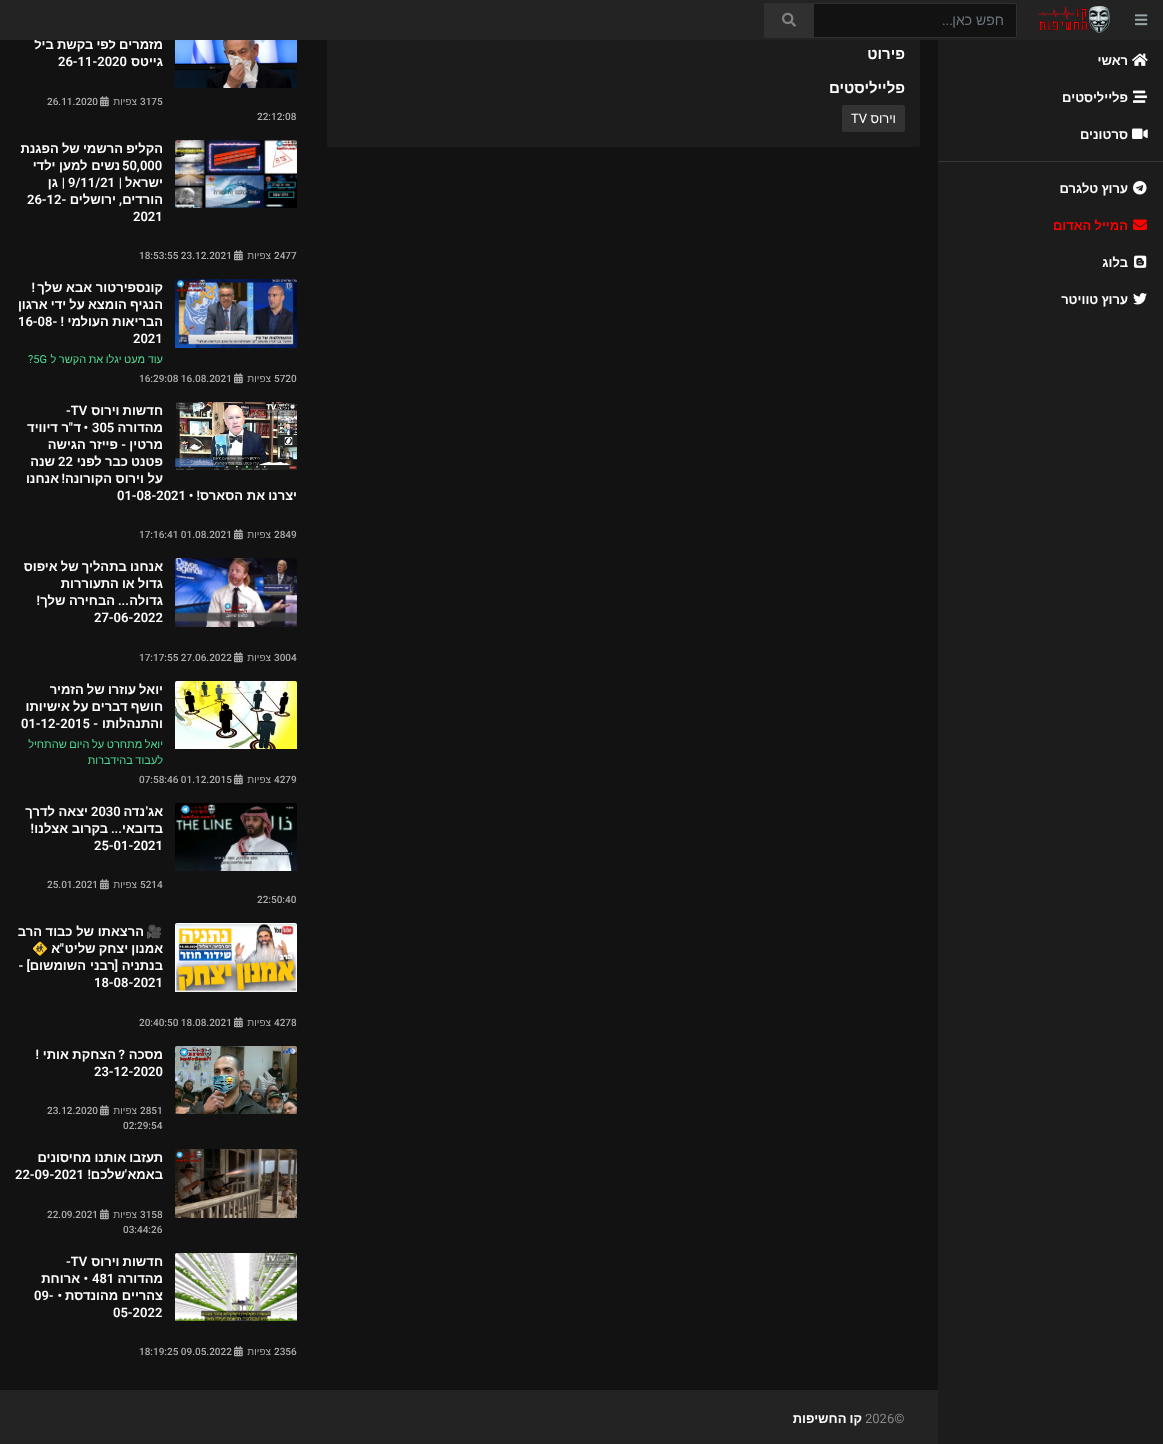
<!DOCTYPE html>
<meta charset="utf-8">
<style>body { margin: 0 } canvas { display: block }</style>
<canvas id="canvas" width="1163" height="1444"></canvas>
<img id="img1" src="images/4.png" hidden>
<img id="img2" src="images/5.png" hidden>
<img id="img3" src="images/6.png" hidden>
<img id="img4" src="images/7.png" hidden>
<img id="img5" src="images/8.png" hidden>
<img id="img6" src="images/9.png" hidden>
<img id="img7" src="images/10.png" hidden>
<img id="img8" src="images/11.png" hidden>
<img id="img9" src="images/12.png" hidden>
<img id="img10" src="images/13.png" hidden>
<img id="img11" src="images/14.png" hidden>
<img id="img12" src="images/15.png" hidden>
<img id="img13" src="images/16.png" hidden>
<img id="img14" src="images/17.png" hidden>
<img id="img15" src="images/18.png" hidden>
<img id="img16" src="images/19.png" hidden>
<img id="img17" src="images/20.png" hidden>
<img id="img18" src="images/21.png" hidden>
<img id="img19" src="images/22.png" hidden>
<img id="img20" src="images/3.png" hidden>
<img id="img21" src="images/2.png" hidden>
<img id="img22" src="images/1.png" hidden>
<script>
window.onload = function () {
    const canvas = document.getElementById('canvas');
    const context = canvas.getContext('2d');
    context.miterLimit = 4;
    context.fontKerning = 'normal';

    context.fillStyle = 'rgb(18, 18, 18)';
    context.fillRect(0, 0, 1163, 1444);
    context.fillStyle = 'rgb(28, 28, 28)';
    context.fillRect(938, 40, 225, 1404);
    context.drawImage(document.getElementById('img1'), 1132, 53, 16, 13);
    context.drawImage(document.getElementById('img2'), 1133, 90, 14, 13);
    context.drawImage(document.getElementById('img3'), 1132, 128, 16, 11);
    context.fillStyle = 'rgb(53, 53, 53)';
    context.fillRect(938, 161, 225, 1);
    context.drawImage(document.getElementById('img4'), 1133, 181, 14, 14);
    context.drawImage(document.getElementById('img5'), 1133, 219, 14, 11);
    context.drawImage(document.getElementById('img6'), 1134, 255, 13, 13);
    context.drawImage(document.getElementById('img7'), 1133, 293, 14, 12);
    context.fillStyle = 'rgb(28, 28, 28)';
    context.beginPath();
    context.roundRect(327, 30, 593, 117, 2);
    context.fill();
    context.fillStyle = 'rgb(51, 51, 51)';
    context.beginPath();
    context.roundRect(842, 105, 63, 27, 2);
    context.fill();
    context.drawImage(document.getElementById('img8'), 100, 96, 9, 11);
    context.drawImage(document.getElementById('img9'), 175, 40, 122, 48);
    context.drawImage(document.getElementById('img10'), 175, 140, 122, 68);
    context.drawImage(document.getElementById('img8'), 234, 250, 9, 11);
    context.drawImage(document.getElementById('img11'), 175, 279, 122, 69);
    context.drawImage(document.getElementById('img8'), 234, 373, 9, 11);
    context.drawImage(document.getElementById('img12'), 175, 402, 122, 68);
    context.drawImage(document.getElementById('img8'), 234, 529, 9, 11);
    context.drawImage(document.getElementById('img13'), 175, 558, 122, 69);
    context.drawImage(document.getElementById('img8'), 234, 652, 9, 11);
    context.drawImage(document.getElementById('img14'), 175, 681, 122, 68);
    context.drawImage(document.getElementById('img8'), 234, 774, 9, 11);
    context.drawImage(document.getElementById('img15'), 175, 803, 122, 68);
    context.drawImage(document.getElementById('img8'), 100, 879, 9, 11);
    context.drawImage(document.getElementById('img16'), 175, 923, 122, 69);
    context.drawImage(document.getElementById('img8'), 234, 1017, 9, 11);
    context.drawImage(document.getElementById('img17'), 175, 1046, 122, 68);
    context.drawImage(document.getElementById('img8'), 100, 1105, 9, 11);
    context.drawImage(document.getElementById('img18'), 175, 1149, 122, 69);
    context.drawImage(document.getElementById('img8'), 100, 1209, 9, 11);
    context.drawImage(document.getElementById('img19'), 175, 1253, 122, 68);
    context.drawImage(document.getElementById('img8'), 234, 1346, 9, 11);
    context.fillStyle = 'rgb(35, 35, 35)';
    context.fillRect(0, 1390, 938, 54);
    context.direction = 'rtl';
    context.font = 'bold 13px Liberation Sans';
    context.fillStyle = 'rgb(255, 255, 255)';
    context.fillText('ראשי', 1128, 65);
    context.fillText('פלייליסטים', 1128, 102);
    context.fillText('סרטונים', 1128, 139);
    context.wordSpacing = '-0.5px';
    context.fillText('ערוץ טלגרם', 1128, 193);
    context.fillStyle = 'rgb(255, 0, 0)';
    context.fillText('המייל האדום', 1128, 230);
    context.wordSpacing = '0px';
    context.fillStyle = 'rgb(255, 255, 255)';
    context.fillText('בלוג', 1128, 267);
    context.wordSpacing = '-0.5px';
    context.fillText('ערוץ טוויטר', 1128, 304);
    context.wordSpacing = '0px';
    context.font = 'bold 15px Liberation Sans';
    context.fillText('פירוט', 905, 59);
    context.fillText('פלייליסטים', 905, 93);
    context.font = '13px Liberation Sans';
    context.fillText('וירוס', 896, 123);
    context.direction = 'ltr';
    context.font = '13px Roboto';
    context.fillText('TV', 851, 123);
    context.wordSpacing = '-0.5px';
    context.direction = 'rtl';
    context.font = 'bold 13px Liberation Sans';
    context.fillText('מזמרים לפי בקשת ביל', 163, 49);
    context.fillStyle = 'rgb(35, 35, 35)';
    context.fillRect(0, 0, 1163, 40);
    context.fillStyle = 'rgb(18, 18, 18)';
    context.beginPath();
    context.roundRect(813.5, 3.5, 203, 34, [0, 1.5, 1.5, 0]);
    context.fill();
    context.strokeStyle = 'rgb(48, 48, 48)';
    context.stroke();
    context.fillStyle = 'rgb(48, 48, 48)';
    context.beginPath();
    context.roundRect(764, 3, 50, 35, [2, 0, 0, 2]);
    context.fill();
    context.drawImage(document.getElementById('img20'), 782, 12, 14, 15);
    context.wordSpacing = '0px';
    context.font = '14px Liberation Sans';
    context.fillStyle = 'rgb(108, 117, 125)';
    context.fillText('חפש כאן', 1004, 25);
    context.font = '14px Roboto';
    context.fillText('...', 953, 25);
    context.drawImage(document.getElementById('img21'), 1038, 6, 72, 27);
    context.drawImage(document.getElementById('img22'), 1135, 14, 13, 12);
    context.font = 'bold 13px Liberation Sans';
    context.fillStyle = 'rgb(255, 255, 255)';
    context.fillText('גייטס', 163, 66);
    context.direction = 'ltr';
    context.font = '600 13px Roboto';
    context.fillText('26-11-2020', 58, 66);
    context.font = '500 10px Roboto';
    context.fillStyle = 'rgb(172, 172, 172)';
    context.fillText('3175', 140, 105);
    context.direction = 'rtl';
    context.font = '10px Liberation Sans';
    context.fillText('צפיות', 137, 105);
    context.direction = 'ltr';
    context.font = '500 10px Roboto';
    context.fillText('26.11.2020', 47, 105);
    context.fillText('22:12:08', 257, 120);
    context.wordSpacing = '-0.5px';
    context.direction = 'rtl';
    context.font = 'bold 13px Liberation Sans';
    context.fillStyle = 'rgb(255, 255, 255)';
    context.fillText('הקליפ הרשמי של הפגנת', 163, 153);
    context.wordSpacing = '0px';
    context.direction = 'ltr';
    context.font = '600 13px Roboto';
    context.fillText('50,000', 122, 170);
    context.direction = 'rtl';
    context.font = 'bold 13px Liberation Sans';
    context.fillText('נשים למען ילדי', 120, 170);
    context.fillText('ישראל', 163, 187);
    context.font = '600 13px Roboto';
    context.fillText('|', 122, 187);
    context.direction = 'ltr';
    context.fillText('9/11/21', 68, 187);
    context.direction = 'rtl';
    context.fillText('|', 65, 187);
    context.font = 'bold 13px Liberation Sans';
    context.fillText('גן', 58, 187);
    context.fillText('הורדים', 163, 204);
    context.fillText('ירושלים', 116, 204);
    context.direction = 'ltr';
    context.font = '600 13px Roboto';
    context.fillText('26-12-', 27, 204);
    context.direction = 'rtl';
    context.fillText(',', 122, 204);
    context.direction = 'ltr';
    context.fillText('2021', 133, 221);
    context.font = '500 10px Roboto';
    context.fillStyle = 'rgb(172, 172, 172)';
    context.fillText('2477', 274, 259);
    context.direction = 'rtl';
    context.font = '10px Liberation Sans';
    context.fillText('צפיות', 271, 259);
    context.direction = 'ltr';
    context.font = '500 10px Roboto';
    context.fillText('18:53:55 23.12.2021', 139, 259);
    context.direction = 'rtl';
    context.font = 'bold 13px Liberation Sans';
    context.fillStyle = 'rgb(255, 255, 255)';
    context.fillText('קונספירטור אבא שלך', 163, 292);
    context.font = '600 13px Roboto';
    context.fillText('!', 35, 292);
    context.wordSpacing = '-0.5px';
    context.font = 'bold 13px Liberation Sans';
    context.fillText('הנגיף הומצא על ידי ארגון', 163, 309);
    context.wordSpacing = '0px';
    context.fillText('הבריאות העולמי', 163, 326);
    context.font = '600 13px Roboto';
    context.fillText('!', 64, 326);
    context.direction = 'ltr';
    context.fillText('16-08-', 18, 326);
    context.fillText('2021', 133, 343);
    context.wordSpacing = '-0.5px';
    context.direction = 'rtl';
    context.font = '11px Liberation Sans';
    context.fillStyle = 'rgb(78, 218, 146)';
    context.fillText('עוד מעט יגלו את הקשר ל', 163, 363);
    context.wordSpacing = '0px';
    context.direction = 'ltr';
    context.font = '11px Roboto';
    context.fillText('?5G', 28, 363);
    context.font = '500 10px Roboto';
    context.fillStyle = 'rgb(172, 172, 172)';
    context.fillText('5720', 274, 382);
    context.direction = 'rtl';
    context.font = '10px Liberation Sans';
    context.fillText('צפיות', 271, 382);
    context.direction = 'ltr';
    context.font = '500 10px Roboto';
    context.fillText('16:29:08 16.08.2021', 139, 382);
    context.wordSpacing = '-0.5px';
    context.direction = 'rtl';
    context.font = 'bold 13px Liberation Sans';
    context.fillStyle = 'rgb(255, 255, 255)';
    context.fillText('חדשות וירוס', 163, 415);
    context.wordSpacing = '0px';
    context.direction = 'ltr';
    context.font = '600 13px Roboto';
    context.fillText('-TV', 66, 415);
    context.direction = 'rtl';
    context.font = 'bold 13px Liberation Sans';
    context.fillText('מהדורה', 163, 432);
    context.direction = 'ltr';
    context.font = '600 13px Roboto';
    context.fillText('305', 92, 432);
    context.direction = 'rtl';
    context.fillText('•', 88, 432);
    context.font = 'bold 13px Liberation Sans';
    context.fillText('ד', 81, 432);
    context.font = '600 13px Roboto';
    context.fillText('"', 73, 432);
    context.font = 'bold 13px Liberation Sans';
    context.fillText('ר דיוויד', 69, 432);
    context.fillText('מרטין', 163, 449);
    context.font = '600 13px Roboto';
    context.fillText('-', 126, 449);
    context.font = 'bold 13px Liberation Sans';
    context.fillText('פייזר הגישה', 118, 449);
    context.wordSpacing = '-0.5px';
    context.fillText('פטנט כבר לפני', 163, 466);
    context.wordSpacing = '0px';
    context.direction = 'ltr';
    context.font = '600 13px Roboto';
    context.fillText('22', 58, 466);
    context.direction = 'rtl';
    context.font = 'bold 13px Liberation Sans';
    context.fillText('שנה', 55, 466);
    context.fillText('על וירוס הקורונה', 163, 483);
    context.font = '600 13px Roboto';
    context.fillText('!', 65, 483);
    context.font = 'bold 13px Liberation Sans';
    context.fillText('אנחנו', 59, 483);
    context.fillText('יצרנו', 297, 500);
    context.fillText('את', 265, 500);
    context.fillText('הסארס', 243, 500);
    context.font = '600 13px Roboto';
    context.fillText('! •', 200, 500);
    context.direction = 'ltr';
    context.fillText('01-08-2021', 117, 500);
    context.font = '500 10px Roboto';
    context.fillStyle = 'rgb(172, 172, 172)';
    context.fillText('2849', 274, 538);
    context.direction = 'rtl';
    context.font = '10px Liberation Sans';
    context.fillText('צפיות', 271, 538);
    context.direction = 'ltr';
    context.font = '500 10px Roboto';
    context.fillText('17:16:41 01.08.2021', 139, 538);
    context.wordSpacing = '-0.5px';
    context.direction = 'rtl';
    context.font = 'bold 13px Liberation Sans';
    context.fillStyle = 'rgb(255, 255, 255)';
    context.fillText('אנחנו בתהליך של איפוס', 163, 571);
    context.fillText('גדול או התעוררות', 163, 588);
    context.wordSpacing = '0px';
    context.fillText('גדולה', 163, 605);
    context.font = '600 13px Roboto';
    context.fillText('...', 129, 605);
    context.font = 'bold 13px Liberation Sans';
    context.fillText('הבחירה שלך', 115, 605);
    context.font = '600 13px Roboto';
    context.fillText('!', 40, 605);
    context.direction = 'ltr';
    context.fillText('27-06-2022', 94, 622);
    context.font = '500 10px Roboto';
    context.fillStyle = 'rgb(172, 172, 172)';
    context.fillText('3004', 274, 661);
    context.direction = 'rtl';
    context.font = '10px Liberation Sans';
    context.fillText('צפיות', 271, 661);
    context.direction = 'ltr';
    context.font = '500 10px Roboto';
    context.fillText('17:17:55 27.06.2022', 139, 661);
    context.wordSpacing = '-0.5px';
    context.direction = 'rtl';
    context.font = 'bold 13px Liberation Sans';
    context.fillStyle = 'rgb(255, 255, 255)';
    context.fillText('יואל עוזרו של הזמיר', 163, 694);
    context.fillText('חושף דברים על אישיותו', 163, 711);
    context.wordSpacing = '0px';
    context.fillText('והתנהלותו', 163, 728);
    context.font = '600 13px Roboto';
    context.fillText('-', 98, 728);
    context.direction = 'ltr';
    context.fillText('01-12-2015', 21, 728);
    context.wordSpacing = '-0.5px';
    context.direction = 'rtl';
    context.font = '11px Liberation Sans';
    context.fillStyle = 'rgb(78, 218, 146)';
    context.fillText('יואל מתחרט על היום שהתחיל', 163, 748);
    context.fillText('לעבוד בהידברות', 163, 764);
    context.wordSpacing = '0px';
    context.direction = 'ltr';
    context.font = '500 10px Roboto';
    context.fillStyle = 'rgb(172, 172, 172)';
    context.fillText('4279', 274, 783);
    context.direction = 'rtl';
    context.font = '10px Liberation Sans';
    context.fillText('צפיות', 271, 783);
    context.direction = 'ltr';
    context.font = '500 10px Roboto';
    context.fillText('07:58:46 01.12.2015', 139, 783);
    context.direction = 'rtl';
    context.font = 'bold 13px Liberation Sans';
    context.fillStyle = 'rgb(255, 255, 255)';
    context.fillText('אג', 163, 816);
    context.font = '600 13px Roboto';
    context.fillText('\'', 148, 816);
    context.font = 'bold 13px Liberation Sans';
    context.fillText('נדה', 145, 816);
    context.direction = 'ltr';
    context.font = '600 13px Roboto';
    context.fillText('2030', 91, 816);
    context.direction = 'rtl';
    context.font = 'bold 13px Liberation Sans';
    context.fillText('יצאה לדרך', 88, 816);
    context.fillText('בדובאי', 163, 833);
    context.font = '600 13px Roboto';
    context.fillText('...', 122, 833);
    context.font = 'bold 13px Liberation Sans';
    context.fillText('בקרוב אצלנו', 108, 833);
    context.font = '600 13px Roboto';
    context.fillText('!', 34, 833);
    context.direction = 'ltr';
    context.fillText('25-01-2021', 94, 850);
    context.font = '500 10px Roboto';
    context.fillStyle = 'rgb(172, 172, 172)';
    context.fillText('5214', 140, 888);
    context.direction = 'rtl';
    context.font = '10px Liberation Sans';
    context.fillText('צפיות', 137, 888);
    context.direction = 'ltr';
    context.font = '500 10px Roboto';
    context.fillText('25.01.2021', 47, 888);
    context.fillText('22:50:40', 257, 903);
    context.direction = 'rtl';
    context.font = 'bold 13px Noto Color Emoji';
    context.fillStyle = 'rgb(255, 255, 255)';
    context.fillText('🎥', 163, 936);
    context.font = 'bold 13px Liberation Sans';
    context.fillText('הרצאתו של כבוד הרב', 144, 936);
    context.wordSpacing = '-0.5px';
    context.fillText('אמנון יצחק שליט', 163, 953);
    context.wordSpacing = '0px';
    context.font = '600 13px Roboto';
    context.fillText('"', 64, 953);
    context.font = 'bold 13px Liberation Sans';
    context.fillText('א', 60, 953);
    context.direction = 'ltr';
    context.font = 'bold 13px Noto Color Emoji';
    context.fillText('🚸', 32, 953);
    context.direction = 'rtl';
    context.font = 'bold 13px Liberation Sans';
    context.fillText('בנתניה', 163, 970);
    context.font = '600 13px Roboto';
    context.fillText('[', 118, 970);
    context.font = 'bold 13px Liberation Sans';
    context.fillText('רבני', 115, 970);
    context.fillText('השומשום', 86, 970);
    context.font = '600 13px Roboto';
    context.fillText('] -', 30, 970);
    context.direction = 'ltr';
    context.fillText('18-08-2021', 94, 987);
    context.font = '500 10px Roboto';
    context.fillStyle = 'rgb(172, 172, 172)';
    context.fillText('4278', 274, 1026);
    context.direction = 'rtl';
    context.font = '10px Liberation Sans';
    context.fillText('צפיות', 271, 1026);
    context.direction = 'ltr';
    context.font = '500 10px Roboto';
    context.fillText('20:40:50 18.08.2021', 139, 1026);
    context.direction = 'rtl';
    context.font = 'bold 13px Liberation Sans';
    context.fillStyle = 'rgb(255, 255, 255)';
    context.fillText('מסכה', 163, 1059);
    context.font = '600 13px Roboto';
    context.fillText('?', 125, 1059);
    context.font = 'bold 13px Liberation Sans';
    context.fillText('הצחקת אותי', 116, 1059);
    context.font = '600 13px Roboto';
    context.fillText('!', 39, 1059);
    context.direction = 'ltr';
    context.fillText('23-12-2020', 94, 1076);
    context.font = '500 10px Roboto';
    context.fillStyle = 'rgb(172, 172, 172)';
    context.fillText('2851', 140, 1114);
    context.direction = 'rtl';
    context.font = '10px Liberation Sans';
    context.fillText('צפיות', 137, 1114);
    context.direction = 'ltr';
    context.font = '500 10px Roboto';
    context.fillText('23.12.2020', 47, 1114);
    context.fillText('02:29:54', 123, 1129);
    context.wordSpacing = '-0.5px';
    context.direction = 'rtl';
    context.font = 'bold 13px Liberation Sans';
    context.fillStyle = 'rgb(255, 255, 255)';
    context.fillText('תעזבו אותנו מחיסונים', 163, 1162);
    context.wordSpacing = '0px';
    context.fillText('באמא', 163, 1179);
    context.font = '600 13px Roboto';
    context.fillText('\'', 127, 1179);
    context.font = 'bold 13px Liberation Sans';
    context.fillText('שלכם', 125, 1179);
    context.font = '600 13px Roboto';
    context.fillText('!', 91, 1179);
    context.direction = 'ltr';
    context.fillText('22-09-2021', 15, 1179);
    context.font = '500 10px Roboto';
    context.fillStyle = 'rgb(172, 172, 172)';
    context.fillText('3158', 140, 1218);
    context.direction = 'rtl';
    context.font = '10px Liberation Sans';
    context.fillText('צפיות', 137, 1218);
    context.direction = 'ltr';
    context.font = '500 10px Roboto';
    context.fillText('22.09.2021', 47, 1218);
    context.fillText('03:44:26', 123, 1233);
    context.wordSpacing = '-0.5px';
    context.direction = 'rtl';
    context.font = 'bold 13px Liberation Sans';
    context.fillStyle = 'rgb(255, 255, 255)';
    context.fillText('חדשות וירוס', 163, 1266);
    context.wordSpacing = '0px';
    context.direction = 'ltr';
    context.font = '600 13px Roboto';
    context.fillText('-TV', 66, 1266);
    context.direction = 'rtl';
    context.font = 'bold 13px Liberation Sans';
    context.fillText('מהדורה', 163, 1283);
    context.direction = 'ltr';
    context.font = '600 13px Roboto';
    context.fillText('481', 92, 1283);
    context.direction = 'rtl';
    context.fillText('•', 88, 1283);
    context.font = 'bold 13px Liberation Sans';
    context.fillText('ארוחת', 80, 1283);
    context.fillText('צהריים מהונדסת', 163, 1300);
    context.font = '600 13px Roboto';
    context.fillText('•', 62, 1300);
    context.direction = 'ltr';
    context.fillText('09-', 34, 1300);
    context.fillText('05-2022', 113, 1317);
    context.font = '500 10px Roboto';
    context.fillStyle = 'rgb(172, 172, 172)';
    context.fillText('2356', 274, 1355);
    context.direction = 'rtl';
    context.font = '10px Liberation Sans';
    context.fillText('צפיות', 271, 1355);
    context.direction = 'ltr';
    context.font = '500 10px Roboto';
    context.fillText('18:19:25 09.05.2022', 139, 1355);
    context.font = '13px Roboto';
    context.fillStyle = 'rgb(136, 136, 136)';
    context.fillText('2026©', 865, 1423);
    context.wordSpacing = '-0.5px';
    context.direction = 'rtl';
    context.font = 'bold 13px Liberation Sans';
    context.fillStyle = 'rgb(255, 255, 255)';
    context.fillText('קו החשיפות', 862, 1423);
};
</script>
